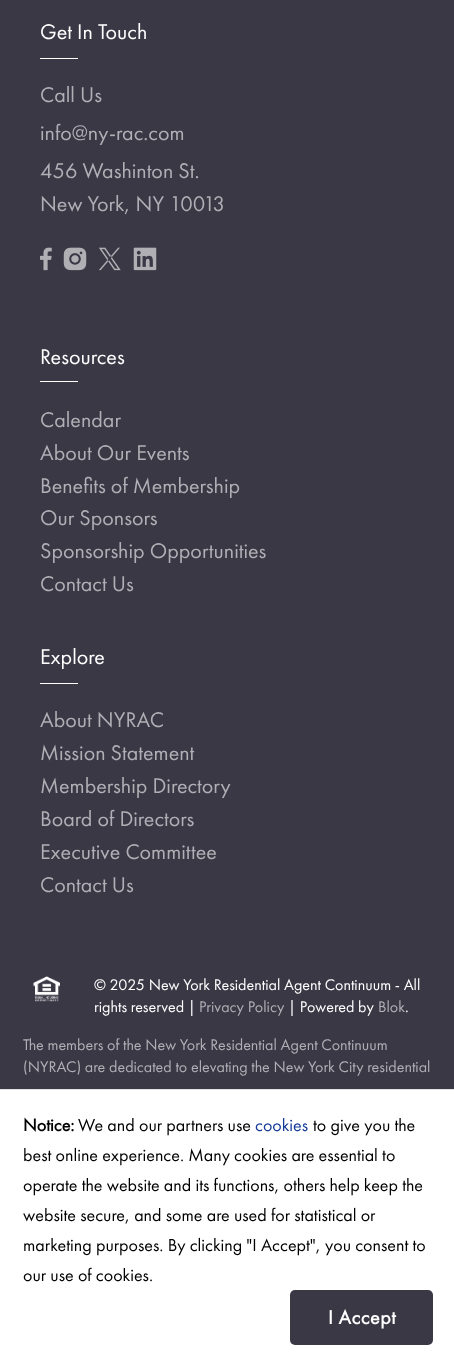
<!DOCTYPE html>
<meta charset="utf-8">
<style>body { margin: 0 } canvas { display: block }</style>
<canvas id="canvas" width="454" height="1365"></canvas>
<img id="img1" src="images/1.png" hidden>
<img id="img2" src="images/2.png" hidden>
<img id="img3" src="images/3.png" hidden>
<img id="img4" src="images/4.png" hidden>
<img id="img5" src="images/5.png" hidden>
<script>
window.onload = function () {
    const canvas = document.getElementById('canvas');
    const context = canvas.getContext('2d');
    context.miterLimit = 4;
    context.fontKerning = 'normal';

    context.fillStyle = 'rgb(58, 56, 69)';
    context.fillRect(0, 0, 454, 1365);
    context.fillStyle = 'rgb(255, 255, 255)';
    context.fillRect(40, 58, 38, 1);
    context.drawImage(document.getElementById('img1'), 40, 247, 12, 24);
    context.drawImage(document.getElementById('img2'), 63, 247, 24, 24);
    context.drawImage(document.getElementById('img3'), 99, 247, 22, 24);
    context.drawImage(document.getElementById('img4'), 133, 247, 24, 24);
    context.fillRect(40, 381, 38, 1);
    context.fillRect(40, 683, 38, 1);
    context.drawImage(document.getElementById('img5'), 33, 976, 27, 26);
    context.fillRect(0, 1090, 454, 275);
    context.fillStyle = 'rgb(225, 224, 227)';
    context.fillRect(0, 1089, 454, 1);
    context.fillStyle = 'rgb(58, 56, 69)';
    context.beginPath();
    context.roundRect(290, 1290, 143, 55, 5);
    context.fill();
    context.font = '22px Futura PT';
    context.fillStyle = 'rgb(255, 255, 255)';
    context.fillText('Get In Touch', 40, 39);
    context.fillStyle = 'rgb(176, 175, 181)';
    context.fillText('Call Us', 40, 102);
    context.fillText('info@ny-rac.com', 40, 140);
    context.fillText('456 Washinton St.', 40, 178);
    context.fillText('New York, NY 10013', 40, 211);
    context.fillStyle = 'rgb(255, 255, 255)';
    context.fillText('Resources', 40, 364);
    context.fillStyle = 'rgb(176, 175, 181)';
    context.fillText('Calendar', 40, 427);
    context.fillText('About Our Events', 40, 460);
    context.fillText('Benefits of Membership', 40, 493);
    context.fillText('Our Sponsors', 40, 525);
    context.fillText('Sponsorship Opportunities', 40, 558);
    context.fillText('Contact Us', 40, 591);
    context.fillStyle = 'rgb(255, 255, 255)';
    context.fillText('Explore', 40, 664);
    context.fillStyle = 'rgb(176, 175, 181)';
    context.fillText('About NYRAC', 40, 727);
    context.fillText('Mission Statement', 40, 760);
    context.fillText('Membership Directory', 40, 793);
    context.fillText('Board of Directors', 40, 826);
    context.fillText('Executive Committee', 40, 859);
    context.fillText('Contact Us', 40, 892);
    context.font = '16px Futura PT';
    context.fillStyle = 'rgb(255, 255, 255)';
    context.fillText('© 2025 New York Residential Agent Continuum - All', 94, 990);
    context.fillText('rights reserved |', 94, 1012);
    context.fillStyle = 'rgb(176, 175, 181)';
    context.fillText('Privacy Policy', 199, 1012);
    context.fillStyle = 'rgb(255, 255, 255)';
    context.fillText('| Powered by', 288, 1012);
    context.fillStyle = 'rgb(176, 175, 181)';
    context.fillText('Blok', 378, 1012);
    context.fillStyle = 'rgb(255, 255, 255)';
    context.fillText('.', 405, 1012);
    context.fillStyle = 'rgb(176, 175, 181)';
    context.fillText('The members of the New York Residential Agent Continuum', 23, 1050);
    context.fillText('(NYRAC) are dedicated to elevating the New York City residential', 23, 1072);
    context.font = 'bold 18px Futura PT';
    context.fillStyle = 'rgb(0, 0, 0)';
    context.fillText('Notice:', 23, 1131);
    context.font = '18px Futura PT';
    context.fillText('We and our partners use', 78, 1131);
    context.fillStyle = 'rgb(21, 58, 151)';
    context.fillText('cookies', 255, 1131);
    context.fillStyle = 'rgb(0, 0, 0)';
    context.fillText('to give you the', 313, 1131);
    context.fillText('best online experience. Many cookies are essential to', 23, 1161);
    context.fillText('operate the website and its functions, others help keep the', 23, 1191);
    context.fillText('website secure, and some are used for statistical or', 23, 1221);
    context.fillText('marketing purposes. By clicking "I Accept", you consent to', 23, 1251);
    context.fillText('our use of cookies.', 23, 1281);
    context.letterSpacing = '0.5px';
    context.font = 'bold 20px Futura PT';
    context.fillStyle = 'rgb(255, 255, 255)';
    context.fillText('I Accept', 328, 1324);
};
</script>
